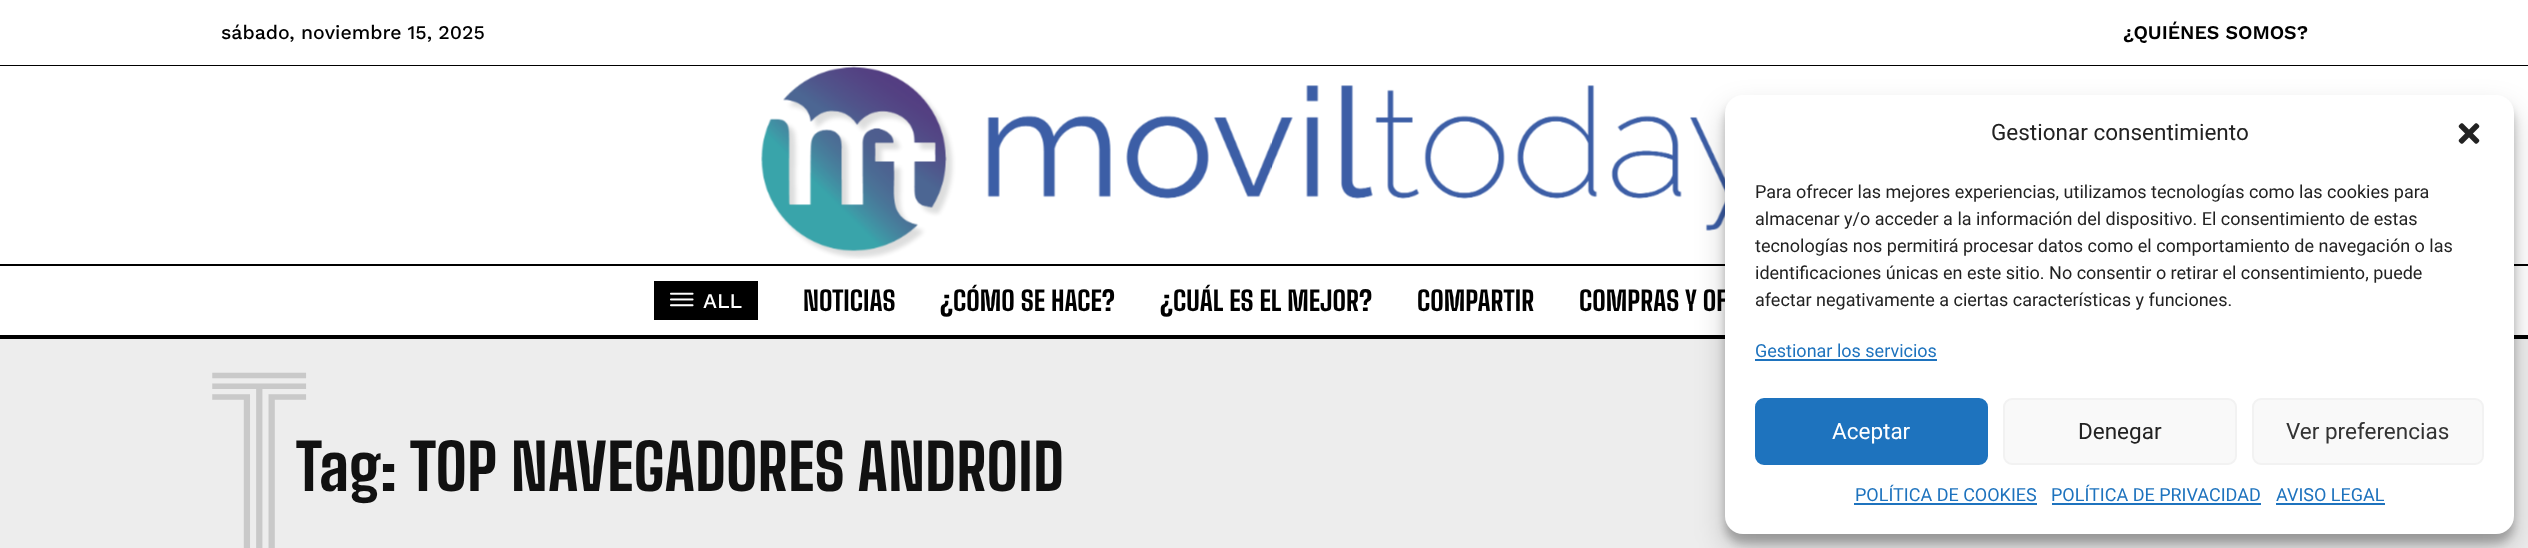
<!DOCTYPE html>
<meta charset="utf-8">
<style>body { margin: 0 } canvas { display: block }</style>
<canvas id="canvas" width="2528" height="548"></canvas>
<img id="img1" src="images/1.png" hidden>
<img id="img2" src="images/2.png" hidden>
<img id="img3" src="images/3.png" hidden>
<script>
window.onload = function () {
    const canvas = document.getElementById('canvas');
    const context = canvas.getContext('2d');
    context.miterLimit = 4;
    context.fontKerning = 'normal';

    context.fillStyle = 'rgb(255, 255, 255)';
    context.fillRect(0, 0, 2528, 548);
    context.fillStyle = 'rgb(0, 0, 0)';
    context.fillRect(0, 65, 2528, 1);
    context.drawImage(document.getElementById('img1'), 761, 66, 964, 193);
    context.fillRect(0, 264, 2528, 2);
    context.fillRect(0, 335, 2528, 4);
    context.fillRect(654, 281, 104, 39);
    context.drawImage(document.getElementById('img2'), 670, 292, 24, 15);
    context.fillStyle = 'rgb(237, 237, 237)';
    context.fillRect(0, 339, 2528, 209);
    context.fillStyle = 'rgba(0, 0, 0, 0.23)';
    context.filter = 'blur(4.5px)';
    context.beginPath();
    context.roundRect(1725, 104, 789, 439, 18);
    context.fill();
    context.filter = 'none';
    context.fillStyle = 'rgba(0, 0, 0, 0.19)';
    context.filter = 'blur(15px)';
    context.beginPath();
    context.roundRect(1725, 110, 789, 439, 18);
    context.fill();
    context.filter = 'none';
    context.font = '500 19.5px Work Sans';
    context.fillStyle = 'rgb(0, 0, 0)';
    context.fillText('sábado, noviembre 15, 2025', 221, 39);
    context.font = '600 19.5px Work Sans';
    context.fillText('¿QUIÉNES SOMOS?', 2123, 39);
    context.font = '500 21px Work Sans';
    context.fillStyle = 'rgb(255, 255, 255)';
    context.fillText('ALL', 703, 308);
    context.font = '800 27px Big Shoulders Text';
    context.fillStyle = 'rgb(0, 0, 0)';
    context.fillText('NOTICIAS', 803, 311);
    context.fillText('¿CÓMO SE HACE?', 940, 311);
    context.fillText('¿CUÁL ES EL MEJOR?', 1160, 311);
    context.fillText('COMPARTIR', 1417, 311);
    context.fillText('COMPRAS Y OF', 1579, 311);
    context.font = '800 234px Big Shoulders Inline Text';
    context.fillStyle = 'rgb(201, 201, 201)';
    context.fillText('T', 211, 560);
    context.font = '800 63px Big Shoulders Text';
    context.fillStyle = 'rgb(17, 17, 17)';
    context.fillText('Tag:', 296, 491);
    context.fillText('TOP NAVEGADORES ANDROID', 410, 491);
    context.fillStyle = 'rgb(255, 255, 255)';
    context.beginPath();
    context.roundRect(1725, 95, 789, 439, 18);
    context.fill();
    context.font = '22.5px Roboto';
    context.fillStyle = 'rgb(34, 34, 34)';
    context.fillText('Gestionar consentimiento', 1991, 140);
    context.drawImage(document.getElementById('img3'), 2458, 123, 22, 21);
    context.font = '18px Roboto';
    context.fillText('Para ofrecer las mejores experiencias, utilizamos tecnologías como las cookies para', 1755, 198);
    context.fillText('almacenar y/o acceder a la información del dispositivo. El consentimiento de estas', 1755, 225);
    context.fillText('tecnologías nos permitirá procesar datos como el comportamiento de navegación o las', 1755, 252);
    context.fillText('identificaciones únicas en este sitio. No consentir o retirar el consentimiento, puede', 1755, 279);
    context.fillText('afectar negativamente a ciertas características y funciones.', 1755, 306);
    context.fillStyle = 'rgb(30, 115, 190)';
    context.fillText('Gestionar los servicios', 1755, 357);
    context.fillRect(1755, 359, 182, 2);
    context.beginPath();
    context.roundRect(1756, 399, 231, 65, 8);
    context.fill();
    context.strokeStyle = 'rgb(30, 115, 190)';
    context.lineWidth = 2;
    context.stroke();
    context.font = '22.5px Roboto';
    context.fillStyle = 'rgb(255, 255, 255)';
    context.fillText('Aceptar', 1832, 439);
    context.fillStyle = 'rgb(249, 249, 249)';
    context.beginPath();
    context.roundRect(2004, 399, 232, 65, 8);
    context.fill();
    context.strokeStyle = 'rgb(242, 242, 242)';
    context.stroke();
    context.fillStyle = 'rgb(34, 34, 34)';
    context.fillText('Denegar', 2078, 439);
    context.fillStyle = 'rgb(249, 249, 249)';
    context.beginPath();
    context.roundRect(2253, 399, 230, 65, 8);
    context.fill();
    context.stroke();
    context.fillStyle = 'rgb(51, 51, 51)';
    context.fillText('Ver preferencias', 2286, 439);
    context.font = '18px Roboto';
    context.fillStyle = 'rgb(30, 115, 190)';
    context.fillText('POLÍTICA DE COOKIES', 1855, 501);
    context.fillRect(1854, 503, 183, 2);
    context.fillText('POLÍTICA DE PRIVACIDAD', 2051, 501);
    context.fillRect(2052, 503, 209, 2);
    context.fillText('AVISO LEGAL', 2276, 501);
    context.fillRect(2276, 503, 109, 2);
};
</script>
